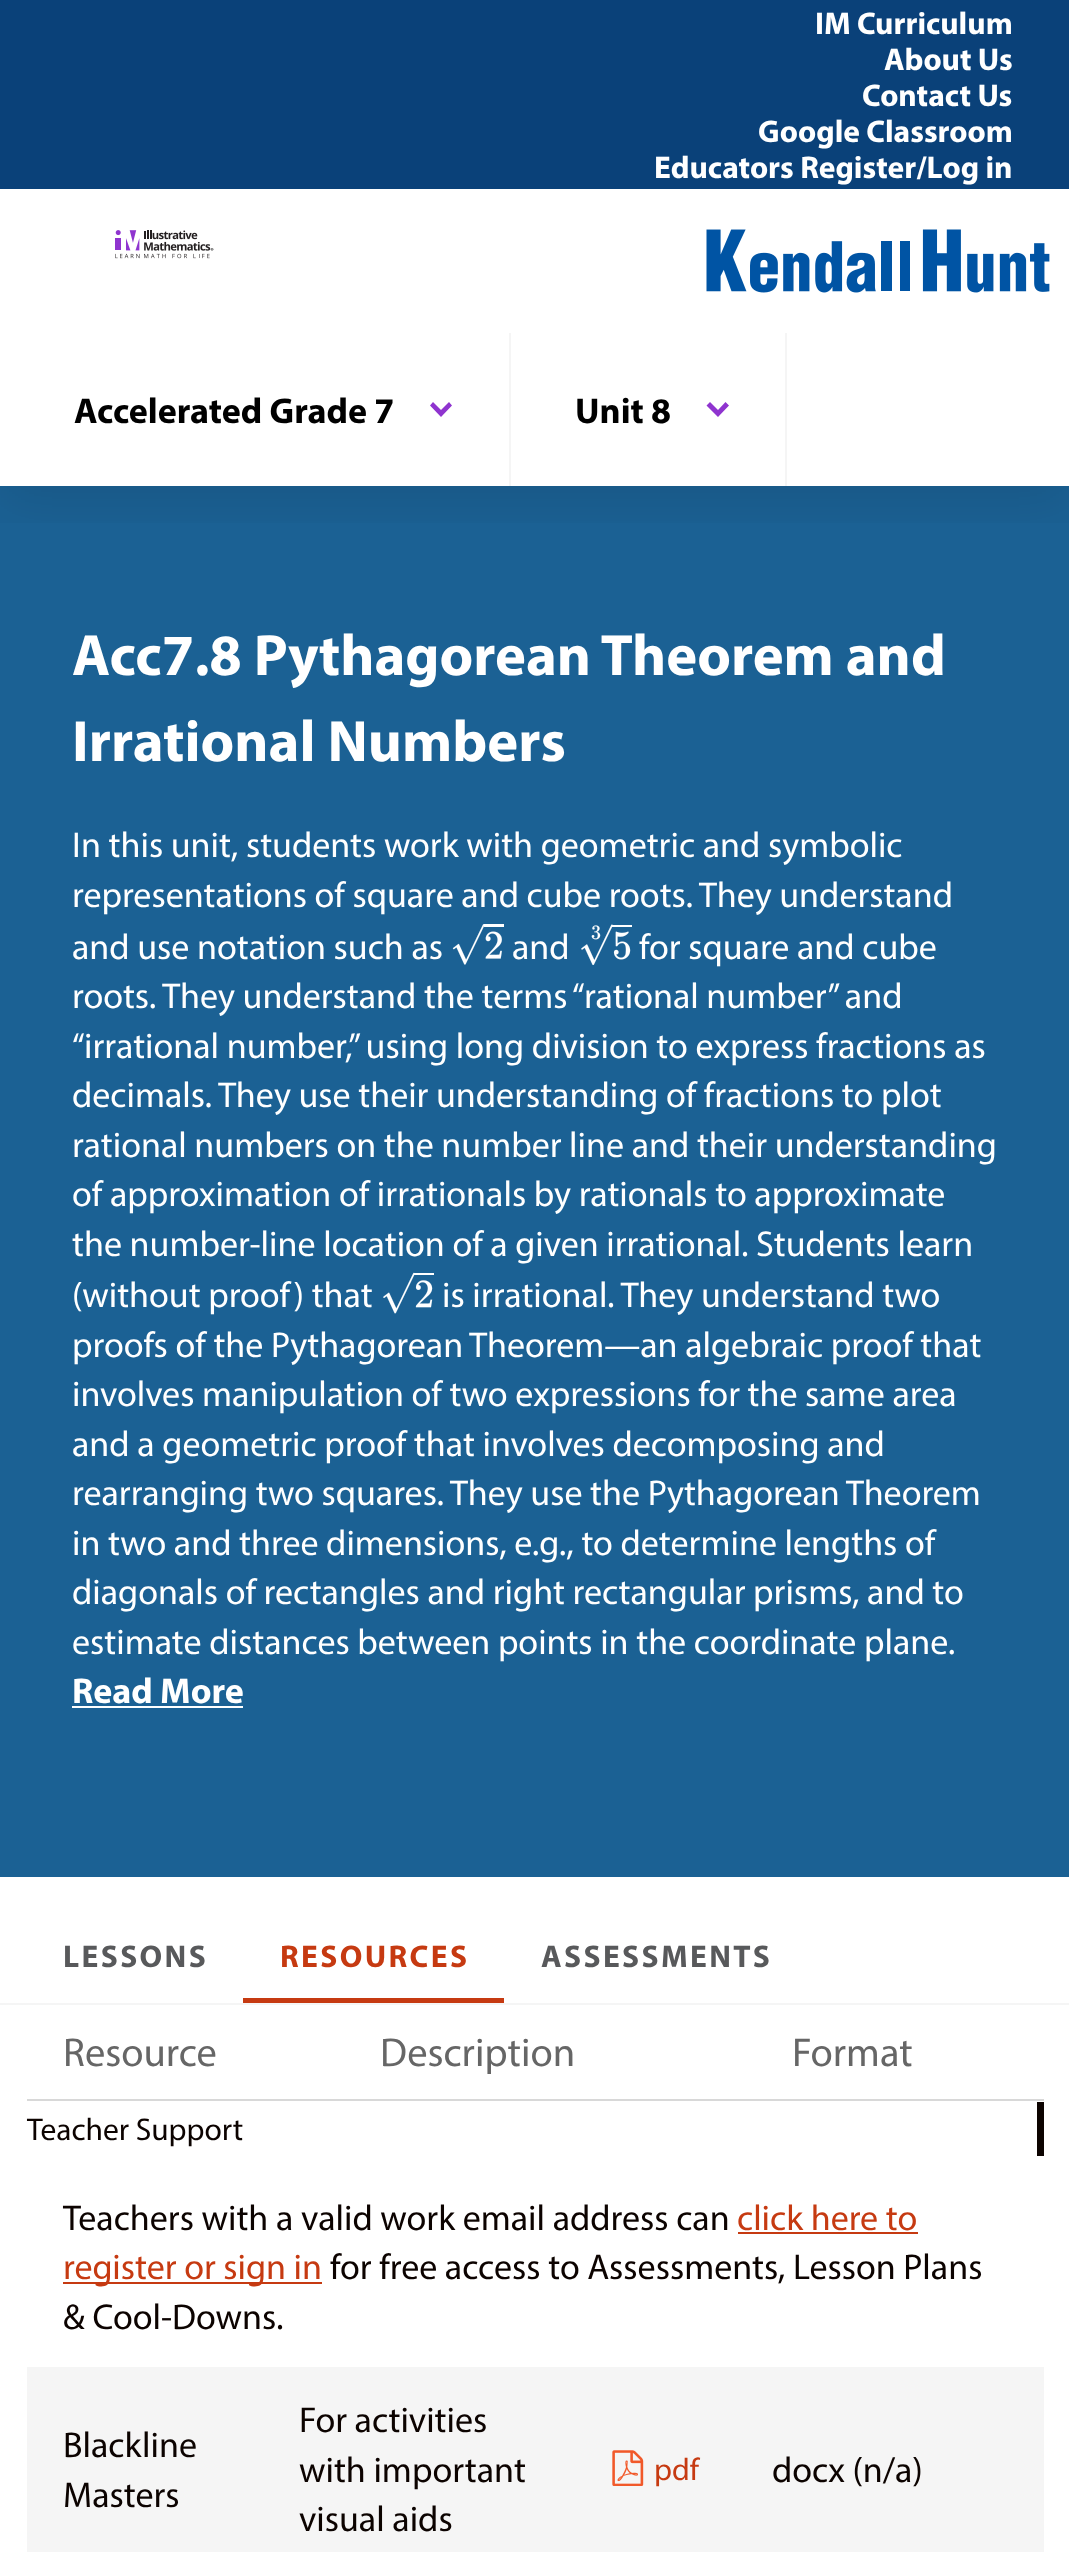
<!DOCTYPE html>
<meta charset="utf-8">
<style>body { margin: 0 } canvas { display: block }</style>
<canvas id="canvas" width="1069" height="2552"></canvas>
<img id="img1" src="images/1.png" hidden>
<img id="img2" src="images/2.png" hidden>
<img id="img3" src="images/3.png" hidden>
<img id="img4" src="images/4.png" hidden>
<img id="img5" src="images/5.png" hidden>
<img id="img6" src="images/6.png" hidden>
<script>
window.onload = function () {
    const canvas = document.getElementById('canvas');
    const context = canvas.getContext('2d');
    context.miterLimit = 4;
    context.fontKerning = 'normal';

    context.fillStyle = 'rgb(255, 255, 255)';
    context.fillRect(0, 0, 1069, 2552);
    context.fillStyle = 'rgb(27, 97, 148)';
    context.fillRect(0, 486, 1069, 1391);
    context.save();
    context.beginPath();
    context.rect(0, 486, 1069, 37);
    context.clip();
    context.fillStyle = 'rgba(0, 0, 0, 0.1)';
    context.filter = 'blur(27px)';
    context.beginPath();
    context.rect(0, 203, 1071, 297);
    context.fill();
    context.filter = 'none';
    context.restore();
    context.fillStyle = 'rgb(10, 65, 121)';
    context.fillRect(0, 0, 1069, 189);
    context.drawImage(document.getElementById('img1'), 115, 230, 99, 29);
    context.drawImage(document.getElementById('img2'), 706, 229, 344, 64);
    context.fillStyle = 'rgb(245, 245, 245)';
    context.fillRect(509, 333, 2, 153);
    context.fillStyle = 'rgb(143, 52, 207)';
    context.beginPath();
    context.moveTo(441, 417);
    context.lineTo(452, 405.5);
    context.lineTo(449, 402);
    context.lineTo(441, 410);
    context.lineTo(433, 402);
    context.lineTo(430, 405.5);
    context.closePath();
    context.fill();
    context.fillStyle = 'rgb(245, 245, 245)';
    context.fillRect(785, 333, 2, 153);
    context.fillStyle = 'rgb(143, 52, 207)';
    context.beginPath();
    context.moveTo(718, 417);
    context.lineTo(729, 405.5);
    context.lineTo(725.5, 402);
    context.lineTo(718, 410);
    context.lineTo(710, 402);
    context.lineTo(706.5, 405.5);
    context.closePath();
    context.fill();
    context.drawImage(document.getElementById('img3'), 452, 924, 52, 41);
    context.drawImage(document.getElementById('img4'), 581, 924, 51, 41);
    context.drawImage(document.getElementById('img5'), 383, 1272, 51, 42);
    context.fillStyle = 'rgb(255, 255, 255)';
    context.fillRect(72, 1706, 171, 2);
    context.fillStyle = 'rgb(245, 245, 245)';
    context.fillRect(0, 2003, 1069, 2);
    context.fillStyle = 'rgb(198, 58, 17)';
    context.fillRect(243, 1998, 261, 5);
    context.fillStyle = 'rgb(216, 216, 216)';
    context.fillRect(27, 2099, 1017, 2);
    context.fillStyle = 'rgb(12, 3, 0)';
    context.fillRect(1037, 2102, 7, 54);
    context.fillStyle = 'rgb(198, 58, 17)';
    context.fillRect(738, 2232, 180, 2);
    context.fillRect(63, 2282, 259, 2);
    context.fillStyle = 'rgb(245, 245, 245)';
    context.fillRect(27, 2367, 1017, 185);
    context.drawImage(document.getElementById('img6'), 612, 2450, 32, 36);
    context.font = 'bold 31.5px Myriad';
    context.fillStyle = 'rgb(255, 255, 255)';
    context.fillText('IM Curriculum', 815, 34);
    context.fillText('About Us', 884, 70);
    context.fillText('Contact Us', 862, 106);
    context.fillText('Google Classroom', 758, 142);
    context.fillText('Educators Register/Log in', 654, 178);
    context.font = 'bold 36px Myriad';
    context.fillStyle = 'rgb(0, 0, 0)';
    context.fillText('Accelerated Grade 7', 74, 423);
    context.fillText('Unit 8', 575, 423);
    context.font = 'bold 58.5px Myriad';
    context.fillStyle = 'rgb(255, 255, 255)';
    context.fillText('Acc7.8 Pythagorean Theorem and', 72, 675);
    context.fillText('Irrational Numbers', 72, 761);
    context.font = '36px Myriad';
    context.fillText('In this unit, students work with geometric and symbolic', 72, 857);
    context.fillText('representations of square and cube roots. They understand', 72, 907);
    context.fillText('and use notation such as', 72, 959);
    context.fillText('and', 512, 959);
    context.fillText('for square and cube', 639, 959);
    context.fillText('roots. They understand the terms “rational number” and', 72, 1008);
    context.fillText('“irrational number,” using long division to express fractions as', 72, 1058);
    context.fillText('decimals. They use their understanding of fractions to plot', 72, 1107);
    context.fillText('rational numbers on the number line and their understanding', 72, 1157);
    context.fillText('of approximation of irrationals by rationals to approximate', 72, 1206);
    context.fillText('the number-line location of a given irrational. Students learn', 72, 1256);
    context.fillText('(without proof) that', 72, 1307);
    context.fillText('is irrational. They understand two', 442, 1307);
    context.fillText('proofs of the Pythagorean Theorem—an algebraic proof that', 72, 1357);
    context.fillText('involves manipulation of two expressions for the same area', 72, 1406);
    context.fillText('and a geometric proof that involves decomposing and', 72, 1456);
    context.fillText('rearranging two squares. They use the Pythagorean Theorem', 72, 1505);
    context.fillText('in two and three dimensions, e.g., to determine lengths of', 72, 1555);
    context.fillText('diagonals of rectangles and right rectangular prisms, and to', 72, 1604);
    context.fillText('estimate distances between points in the coordinate plane.', 72, 1654);
    context.font = 'bold 36px Myriad';
    context.fillText('Read More', 72, 1703);
    context.letterSpacing = '2.4px';
    context.font = 'bold 31.5px Myriad';
    context.fillStyle = 'rgb(88, 89, 91)';
    context.fillText('LESSONS', 63, 1967);
    context.fillStyle = 'rgb(198, 58, 17)';
    context.fillText('RESOURCES', 280, 1967);
    context.fillStyle = 'rgb(88, 89, 91)';
    context.fillText('ASSESSMENTS', 541, 1967);
    context.letterSpacing = '0px';
    context.font = '40.5px Myriad';
    context.fillStyle = 'rgb(102, 102, 102)';
    context.fillText('Resource', 63, 2066);
    context.fillText('Description', 380, 2066);
    context.fillText('Format', 792, 2066);
    context.font = '31.5px Myriad';
    context.fillStyle = 'rgb(12, 3, 0)';
    context.fillText('Teacher Support', 27, 2140);
    context.font = '36px Myriad';
    context.fillText('Teachers with a valid work email address can', 63, 2230);
    context.fillStyle = 'rgb(198, 58, 17)';
    context.fillText('click here to', 737, 2230);
    context.fillText('register or sign in', 63, 2279);
    context.fillStyle = 'rgb(12, 3, 0)';
    context.fillText('for free access to Assessments, Lesson Plans', 330, 2279);
    context.fillText('& Cool-Downs.', 63, 2329);
    context.fillText('Blackline', 63, 2457);
    context.fillText('Masters', 63, 2507);
    context.fillText('For activities', 299, 2432);
    context.fillText('with important', 299, 2482);
    context.fillText('visual aids', 299, 2531);
    context.font = '31.5px Myriad';
    context.fillStyle = 'rgb(198, 58, 17)';
    context.fillText('pdf', 654, 2480);
    context.font = '36px Myriad';
    context.fillStyle = 'rgb(12, 3, 0)';
    context.fillText('docx (n/a)', 772, 2482);
};
</script>
